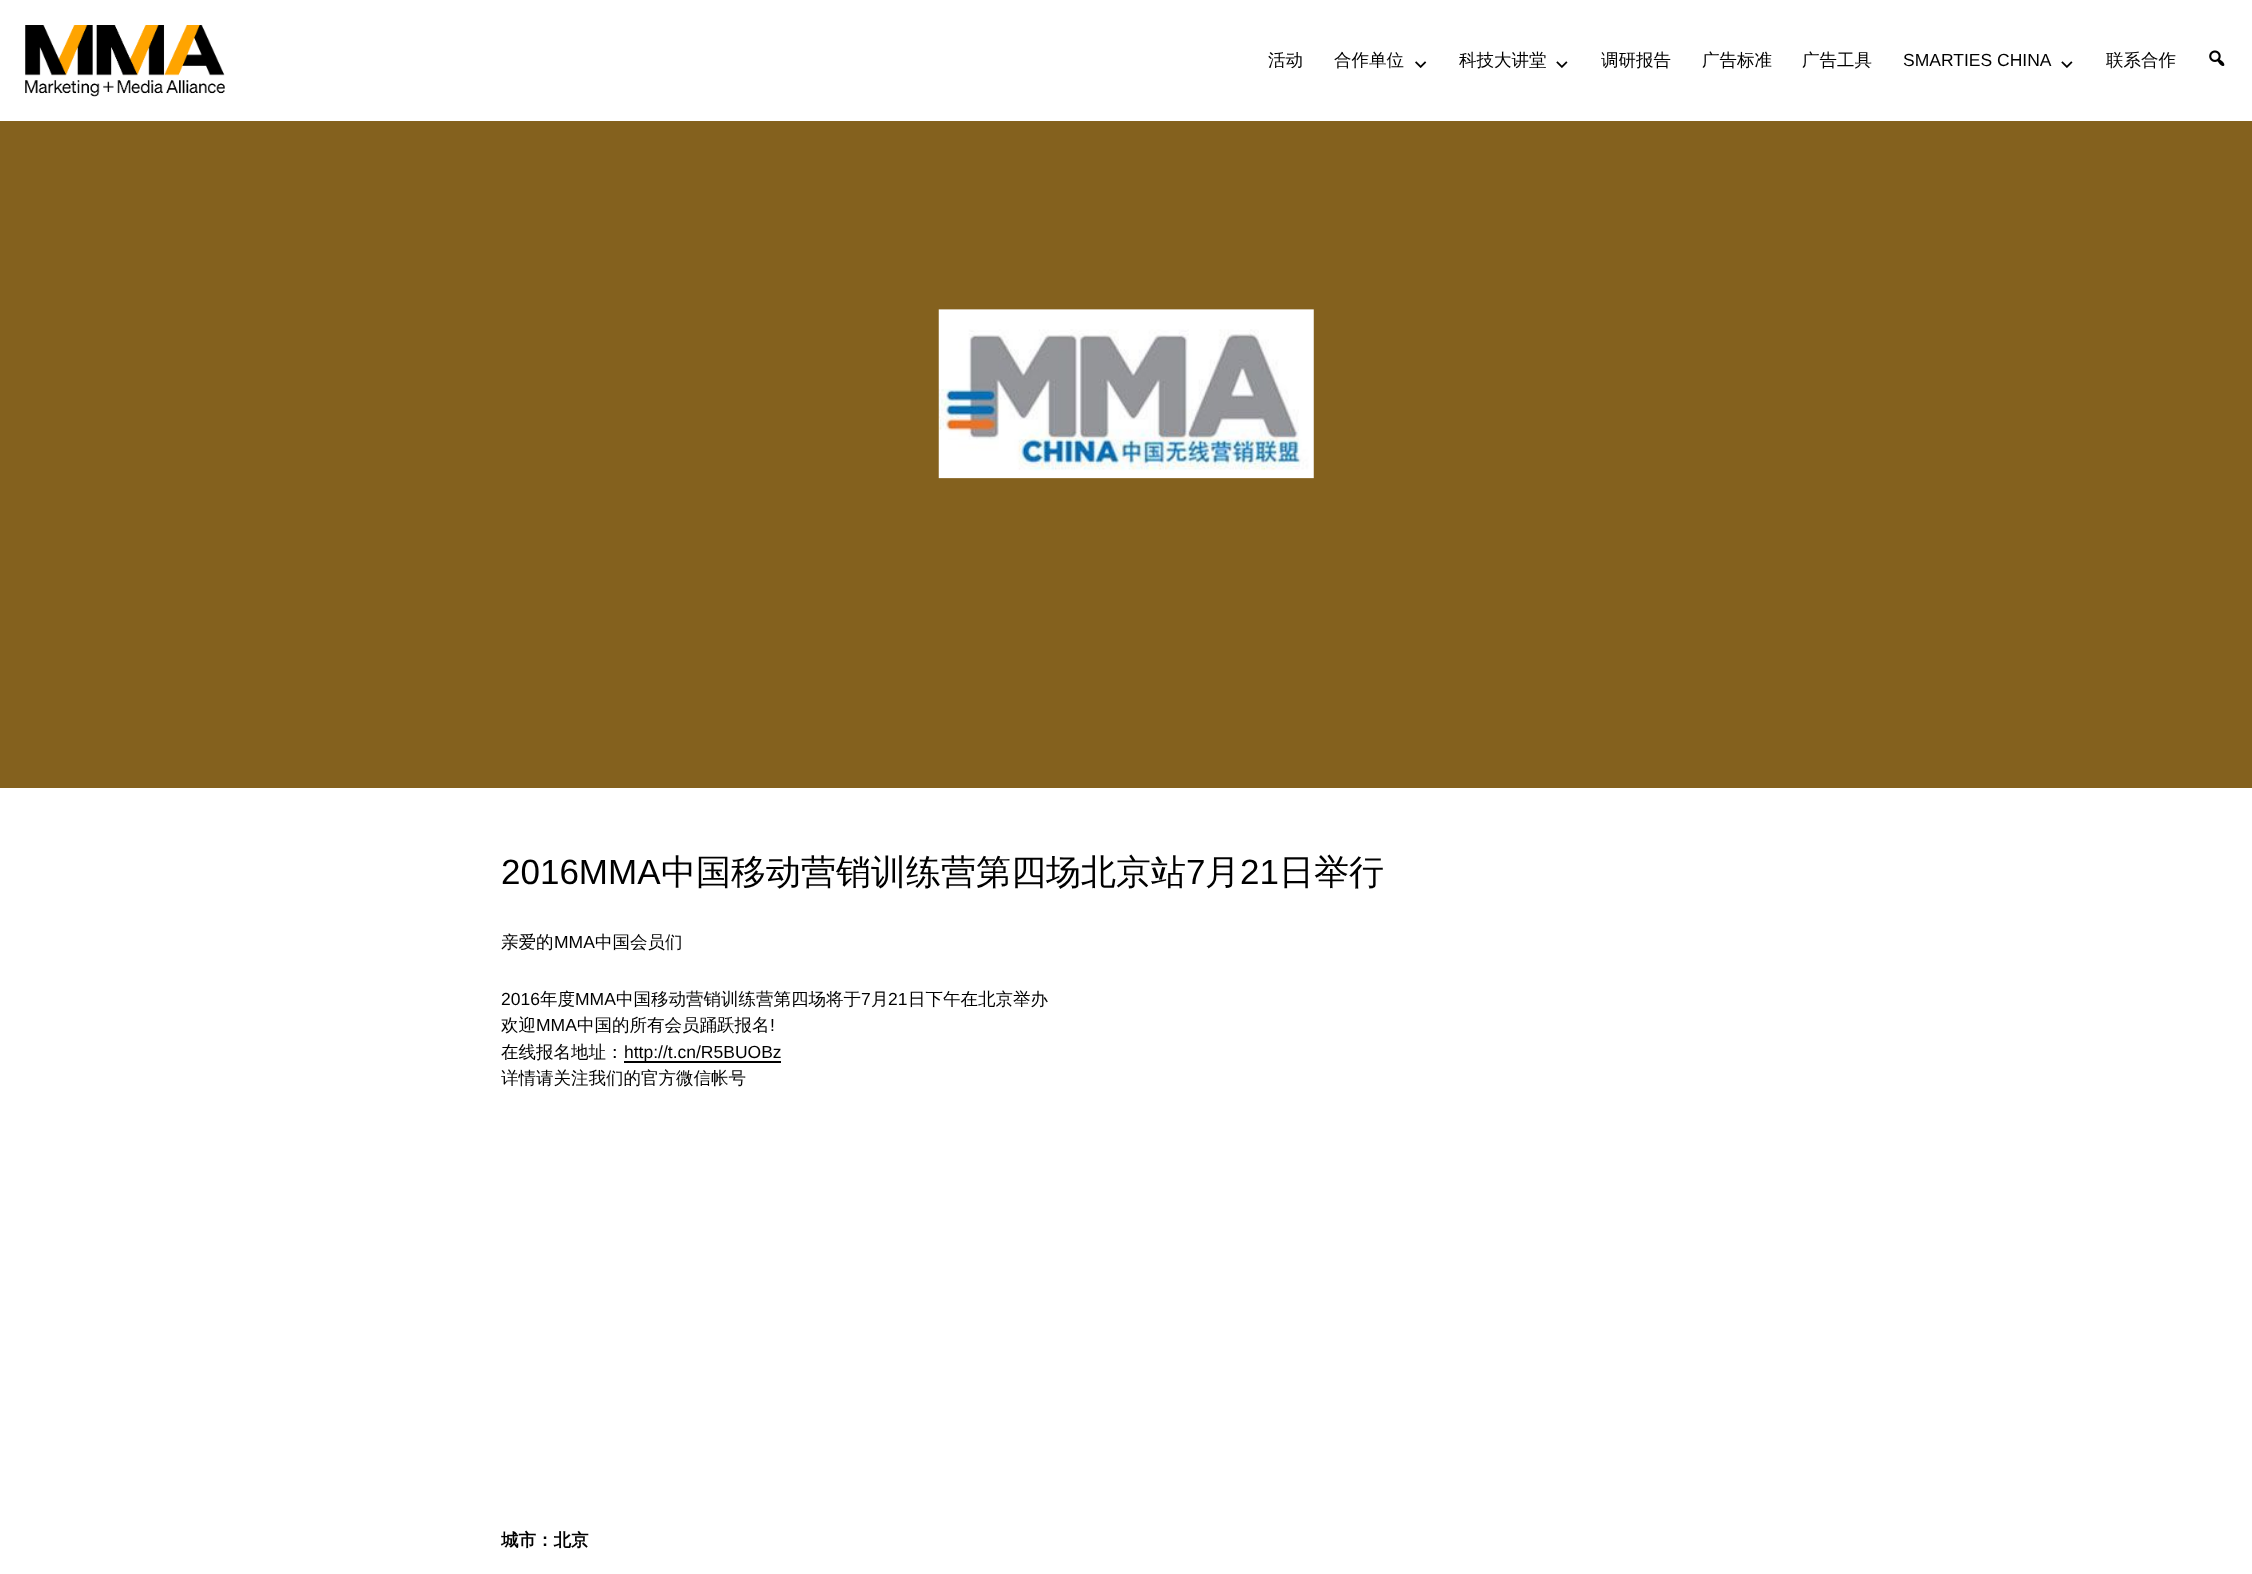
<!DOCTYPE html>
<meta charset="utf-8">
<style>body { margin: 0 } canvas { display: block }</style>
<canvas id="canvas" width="2252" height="1574"></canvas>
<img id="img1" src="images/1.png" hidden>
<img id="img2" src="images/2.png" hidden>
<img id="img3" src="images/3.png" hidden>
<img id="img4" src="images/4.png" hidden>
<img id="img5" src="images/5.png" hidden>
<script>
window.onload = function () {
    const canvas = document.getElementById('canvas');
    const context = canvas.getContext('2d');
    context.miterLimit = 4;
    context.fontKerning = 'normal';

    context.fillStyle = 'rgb(255, 255, 255)';
    context.fillRect(0, 0, 2252, 1574);
    context.drawImage(document.getElementById('img1'), 25, 25, 200, 72);
    context.drawImage(document.getElementById('img2'), 1415, 61, 12, 7);
    context.drawImage(document.getElementById('img3'), 1556, 61, 12, 7);
    context.drawImage(document.getElementById('img3'), 2061, 61, 12, 7);
    context.drawImage(document.getElementById('img4'), 2209, 50, 16, 16);
    context.fillStyle = 'rgb(132, 97, 30)';
    context.fillRect(0, 121, 2252, 667);
    context.drawImage(document.getElementById('img5'), 938, 309, 376, 170);
    context.fillStyle = 'rgb(0, 0, 0)';
    context.fillRect(624, 1061, 157, 2);
    context.font = '500 17.5px WenQuanYi Zen Hei';
    context.fillText('活动', 1268, 66);
    context.fillText('合作单位', 1334, 66);
    context.fillText('科技大讲堂', 1459, 66);
    context.fillText('调研报告', 1601, 66);
    context.fillText('广告标准', 1702, 66);
    context.fillText('广告工具', 1802, 66);
    context.font = '17.5px Liberation Sans';
    context.fillText('SMARTIES CHINA', 1903, 66);
    context.font = '500 17.5px WenQuanYi Zen Hei';
    context.fillText('联系合作', 2106, 66);
    context.font = '35px Liberation Sans';
    context.fillText('2016MMA', 501, 884);
    context.font = '500 35px WenQuanYi Zen Hei';
    context.fillText('中国移动营销训练营第四场北京站', 661, 884);
    context.font = '35px Liberation Sans';
    context.fillText('7', 1186, 884);
    context.font = '500 35px WenQuanYi Zen Hei';
    context.fillText('月', 1205, 884);
    context.font = '35px Liberation Sans';
    context.fillText('21', 1240, 884);
    context.font = '500 35px WenQuanYi Zen Hei';
    context.fillText('日举行', 1279, 884);
    context.font = '500 17.5px WenQuanYi Zen Hei';
    context.fillText('亲爱的', 501, 948);
    context.font = '17.5px Liberation Sans';
    context.fillText('MMA', 554, 948);
    context.font = '500 17.5px WenQuanYi Zen Hei';
    context.fillText('中国会员们', 595, 948);
    context.font = '17.5px Liberation Sans';
    context.fillText('2016', 501, 1005);
    context.font = '500 17.5px WenQuanYi Zen Hei';
    context.fillText('年度', 540, 1005);
    context.font = '17.5px Liberation Sans';
    context.fillText('MMA', 575, 1005);
    context.font = '500 17.5px WenQuanYi Zen Hei';
    context.fillText('中国移动营销训练营第四场将于', 616, 1005);
    context.font = '17.5px Liberation Sans';
    context.fillText('7', 861, 1005);
    context.font = '500 17.5px WenQuanYi Zen Hei';
    context.fillText('月', 871, 1005);
    context.font = '17.5px Liberation Sans';
    context.fillText('21', 888, 1005);
    context.font = '500 17.5px WenQuanYi Zen Hei';
    context.fillText('日下午在北京举办', 908, 1005);
    context.fillText('欢迎', 501, 1031);
    context.font = '17.5px Liberation Sans';
    context.fillText('MMA', 536, 1031);
    context.font = '500 17.5px WenQuanYi Zen Hei';
    context.fillText('中国的所有会员踊跃报名', 577, 1031);
    context.font = '17.5px Liberation Sans';
    context.fillText('!', 770, 1031);
    context.font = '500 17.5px WenQuanYi Zen Hei';
    context.fillText('在线报名地址：', 501, 1058);
    context.font = '17.5px Liberation Sans';
    context.fillText('http://t.cn/R5BUOBz', 624, 1058);
    context.font = '500 17.5px WenQuanYi Zen Hei';
    context.fillText('详情请关注我们的官方微信帐号', 501, 1084);
    context.font = 'bold 17.5px WenQuanYi Zen Hei';
    context.fillText('城市：北京', 501, 1546);
};
</script>
